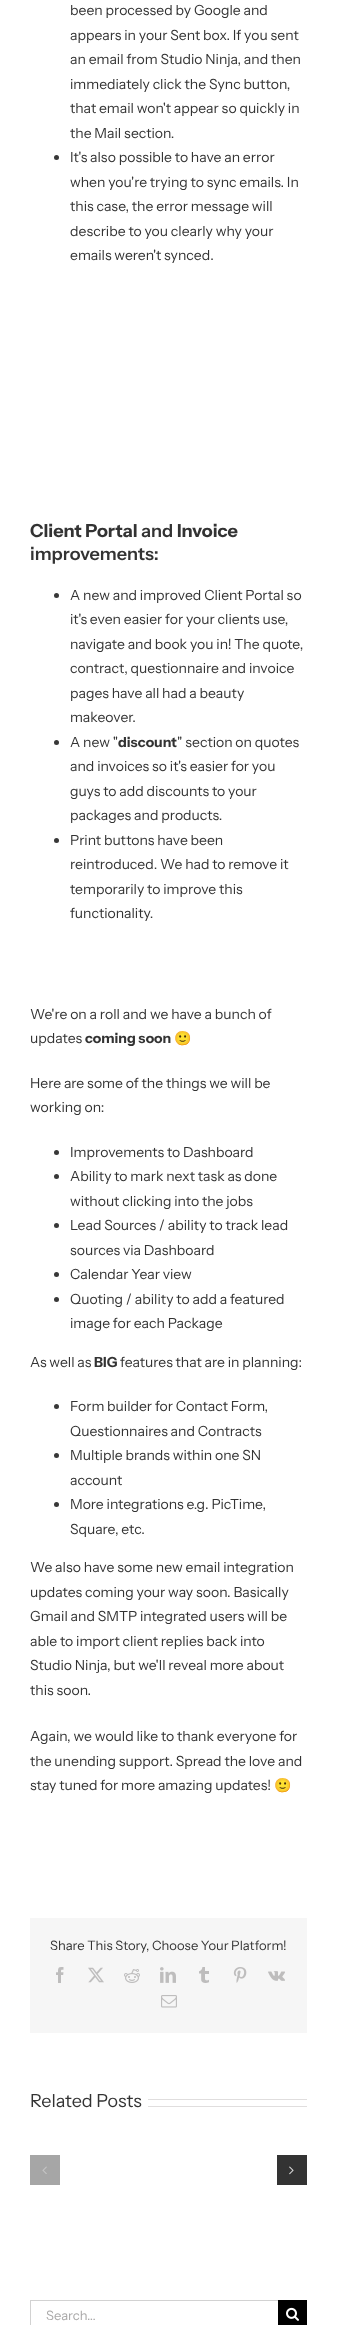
<!DOCTYPE html>
<meta charset="utf-8">
<style>body { margin: 0 } canvas { display: block }</style>
<canvas id="canvas" width="337" height="2325"></canvas>
<img id="img1" src="images/1.png" hidden>
<img id="img2" src="images/2.png" hidden>
<img id="img3" src="images/3.png" hidden>
<img id="img4" src="images/4.png" hidden>
<img id="img5" src="images/5.png" hidden>
<img id="img6" src="images/6.png" hidden>
<img id="img7" src="images/7.png" hidden>
<img id="img8" src="images/8.png" hidden>
<img id="img9" src="images/9.png" hidden>
<img id="img10" src="images/10.png" hidden>
<img id="img11" src="images/11.png" hidden>
<script>
window.onload = function () {
    const canvas = document.getElementById('canvas');
    const context = canvas.getContext('2d');
    context.miterLimit = 4;
    context.fontKerning = 'normal';

    context.fillStyle = 'rgb(255, 255, 255)';
    context.fillRect(0, 0, 337, 2325);
    context.fillStyle = 'rgb(56, 56, 56)';
    context.beginPath();
    context.arc(56.5, 157.5, 2.5, 0, 2 * Math.PI);
    context.fill();
    context.beginPath();
    context.arc(56.5, 595.5, 2.5, 0, 2 * Math.PI);
    context.fill();
    context.beginPath();
    context.arc(56.5, 742.5, 2.5, 0, 2 * Math.PI);
    context.fill();
    context.beginPath();
    context.arc(56.5, 840.5, 2.5, 0, 2 * Math.PI);
    context.fill();
    context.beginPath();
    context.arc(56.5, 1152.5, 2.5, 0, 2 * Math.PI);
    context.fill();
    context.beginPath();
    context.arc(56.5, 1176.5, 2.5, 0, 2 * Math.PI);
    context.fill();
    context.beginPath();
    context.arc(56.5, 1225.5, 2.5, 0, 2 * Math.PI);
    context.fill();
    context.beginPath();
    context.arc(56.5, 1274.5, 2.5, 0, 2 * Math.PI);
    context.fill();
    context.beginPath();
    context.arc(56.5, 1299.5, 2.5, 0, 2 * Math.PI);
    context.fill();
    context.beginPath();
    context.arc(56.5, 1406.5, 2.5, 0, 2 * Math.PI);
    context.fill();
    context.beginPath();
    context.arc(56.5, 1455.5, 2.5, 0, 2 * Math.PI);
    context.fill();
    context.beginPath();
    context.arc(56.5, 1504.5, 2.5, 0, 2 * Math.PI);
    context.fill();
    context.fillStyle = 'rgb(246, 246, 246)';
    context.fillRect(30, 1918, 277, 115);
    context.drawImage(document.getElementById('img1'), 56, 1967, 8, 16);
    context.drawImage(document.getElementById('img2'), 88, 1967, 16, 16);
    context.drawImage(document.getElementById('img3'), 124, 1969, 16, 14);
    context.drawImage(document.getElementById('img4'), 160, 1967, 16, 16);
    context.drawImage(document.getElementById('img5'), 199, 1967, 10, 16);
    context.drawImage(document.getElementById('img6'), 233, 1967, 14, 16);
    context.drawImage(document.getElementById('img7'), 268, 1971, 17, 10);
    context.drawImage(document.getElementById('img8'), 161, 1995, 16, 13);
    context.fillStyle = 'rgb(224, 222, 222)';
    context.fillRect(148, 2099, 159, 1);
    context.fillRect(148, 2106, 159, 1);
    context.fillStyle = 'rgb(166, 166, 166)';
    context.fillRect(30, 2155, 30, 30);
    context.drawImage(document.getElementById('img9'), 42, 2166, 5, 8);
    context.fillStyle = 'rgb(51, 51, 51)';
    context.fillRect(277, 2155, 30, 30);
    context.drawImage(document.getElementById('img10'), 289, 2166, 5, 9);
    context.fillStyle = 'rgb(210, 210, 210)';
    context.fillRect(30, 2300, 248, 1);
    context.fillRect(30, 2300, 1, 25);
    context.fillStyle = 'rgb(0, 0, 0)';
    context.fillRect(278, 2300, 29, 25);
    context.drawImage(document.getElementById('img11'), 286, 2307, 13, 14);
    context.font = '14px Instrument Sans';
    context.fillStyle = 'rgb(51, 51, 51)';
    context.fillText('been processed by Google and', 70, 15);
    context.fillText('appears in your Sent box. If you sent', 70, 40);
    context.fillText('an email from Studio Ninja, and then', 70, 64);
    context.fillText('immediately click the Sync button,', 70, 89);
    context.fillText('that email won\'t appear so quickly in', 70, 113);
    context.fillText('the Mail section.', 70, 138);
    context.fillText('It\'s also possible to have an error', 70, 162);
    context.fillText('when you\'re trying to sync emails. In', 70, 187);
    context.fillText('this case, the error message will', 70, 211);
    context.fillText('describe to you clearly why your', 70, 236);
    context.fillText('emails weren\'t synced.', 70, 260);
    context.font = 'bold 18px Instrument Sans';
    context.fillText('Client Portal', 30, 537);
    context.font = '600 18px Instrument Sans';
    context.fillText('and', 141, 537);
    context.font = 'bold 18px Instrument Sans';
    context.fillText('Invoice', 177, 537);
    context.font = '600 18px Instrument Sans';
    context.fillText('improvements:', 30, 560);
    context.font = '14px Instrument Sans';
    context.fillText('A new and improved Client Portal so', 70, 600);
    context.fillText('it\'s even easier for your clients use,', 70, 624);
    context.fillText('navigate and book you in! The quote,', 70, 649);
    context.fillText('contract, questionnaire and invoice', 70, 673);
    context.fillText('pages have all had a beauty', 70, 698);
    context.fillText('makeover.', 70, 722);
    context.fillText('A new "', 70, 747);
    context.font = 'bold 14px Instrument Sans';
    context.fillText('discount', 118, 747);
    context.font = '14px Instrument Sans';
    context.fillText('" section on quotes', 177, 747);
    context.fillText('and invoices so it\'s easier for you', 70, 771);
    context.fillText('guys to add discounts to your', 70, 796);
    context.fillText('packages and products.', 70, 820);
    context.fillText('Print buttons have been', 70, 845);
    context.fillText('reintroduced. We had to remove it', 70, 869);
    context.fillText('temporarily to improve this', 70, 894);
    context.fillText('functionality.', 70, 918);
    context.fillText('We\'re on a roll and we have a bunch of', 30, 1019);
    context.fillText('updates', 30, 1043);
    context.font = 'bold 14px Instrument Sans';
    context.fillText('coming soon', 85, 1043);
    context.font = '14px Noto Color Emoji';
    context.fillText('🙂', 174, 1043);
    context.font = '14px Instrument Sans';
    context.fillText('Here are some of the things we will be', 30, 1088);
    context.fillText('working on:', 30, 1112);
    context.fillText('Improvements to Dashboard', 70, 1157);
    context.fillText('Ability to mark next task as done', 70, 1181);
    context.fillText('without clicking into the jobs', 70, 1206);
    context.fillText('Lead Sources / ability to track lead', 70, 1230);
    context.fillText('sources via Dashboard', 70, 1255);
    context.fillText('Calendar Year view', 70, 1279);
    context.fillText('Quoting / ability to add a featured', 70, 1304);
    context.fillText('image for each Package', 70, 1328);
    context.fillText('As well as', 30, 1367);
    context.font = 'bold 14px Instrument Sans';
    context.fillText('BIG', 94, 1367);
    context.font = '14px Instrument Sans';
    context.fillText('features that are in planning:', 120, 1367);
    context.fillText('Form builder for Contact Form,', 70, 1411);
    context.fillText('Questionnaires and Contracts', 70, 1436);
    context.fillText('Multiple brands within one SN', 70, 1460);
    context.fillText('account', 70, 1485);
    context.fillText('More integrations e.g. PicTime,', 70, 1509);
    context.fillText('Square, etc.', 70, 1534);
    context.fillText('We also have some new email integration', 30, 1572);
    context.fillText('updates coming your way soon. Basically', 30, 1597);
    context.fillText('Gmail and SMTP integrated users will be', 30, 1621);
    context.fillText('able to import client replies back into', 30, 1646);
    context.fillText('Studio Ninja, but we\'ll reveal more about', 30, 1670);
    context.fillText('this soon.', 30, 1695);
    context.fillText('Again, we would like to thank everyone for', 30, 1741);
    context.fillText('the unending support. Spread the love and', 30, 1766);
    context.fillText('stay tuned for more amazing updates!', 30, 1790);
    context.font = '14px Noto Color Emoji';
    context.fillText('🙂', 274, 1790);
    context.font = '13px Instrument Sans';
    context.fillText('Share This Story, Choose Your Platform!', 50, 1950);
    context.font = '18px Instrument Sans';
    context.fillText('Related Posts', 30, 2107);
    context.font = '13px Instrument Sans';
    context.fillStyle = 'rgb(170, 169, 169)';
    context.fillText('Search...', 46, 2320);
};
</script>
